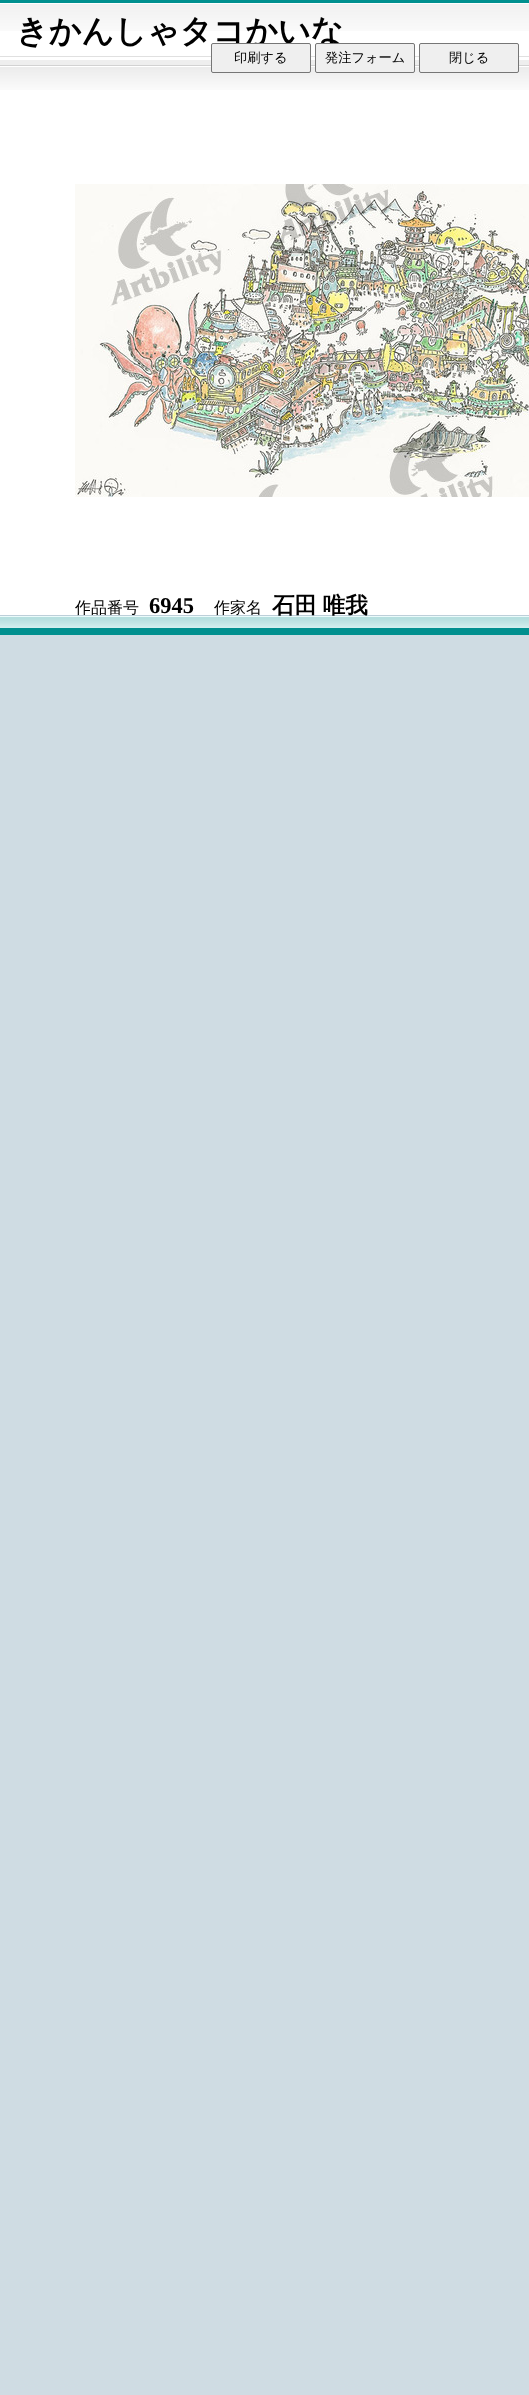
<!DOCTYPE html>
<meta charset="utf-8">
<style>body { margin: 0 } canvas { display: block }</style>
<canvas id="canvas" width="529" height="2395"></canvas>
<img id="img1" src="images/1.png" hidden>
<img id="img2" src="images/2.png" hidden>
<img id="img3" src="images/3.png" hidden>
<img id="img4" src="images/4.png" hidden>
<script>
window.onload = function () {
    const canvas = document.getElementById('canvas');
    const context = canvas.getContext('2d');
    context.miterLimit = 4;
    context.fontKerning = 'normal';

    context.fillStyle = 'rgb(207, 220, 227)';
    context.fillRect(0, 0, 529, 2395);
    context.fillStyle = 'rgb(255, 255, 255)';
    context.fillRect(0, 31, 529, 29);
    context.drawImage(document.getElementById('img1'), 0, 0, 529, 31);
    context.fillStyle = 'rgb(224, 224, 224)';
    context.fillRect(0, 56, 529, 1);
    context.fillStyle = 'rgb(234, 251, 251)';
    context.fillRect(0, 616, 529, 1);
    context.drawImage(document.getElementById('img2'), 0, 617, 529, 11);
    context.fillStyle = 'rgb(189, 207, 217)';
    context.fillRect(0, 615, 529, 1);
    context.fillStyle = 'rgb(0, 144, 143)';
    context.fillRect(0, 628, 529, 7);
    context.drawImage(document.getElementById('img3'), 0, 60, 529, 30);
    context.fillStyle = 'rgb(239, 239, 239)';
    context.beginPath();
    context.roundRect(419.5, 43.5, 99, 29, 1.5);
    context.fill();
    context.strokeStyle = 'rgb(118, 118, 118)';
    context.stroke();
    context.fillStyle = 'rgb(255, 255, 255)';
    context.fillRect(0, 90, 529, 525);
    context.drawImage(document.getElementById('img4'), 75, 184, 454, 313);
    context.font = 'bold 32px WenQuanYi Zen Hei';
    context.fillStyle = 'rgb(0, 0, 0)';
    context.fillText('きかんしゃタコかいな', 16, 42);
    context.fillStyle = 'rgb(239, 239, 239)';
    context.beginPath();
    context.roundRect(211.5, 43.5, 99, 29, 1.5);
    context.fill();
    context.stroke();
    context.font = '500 13.25px WenQuanYi Zen Hei';
    context.fillStyle = 'rgb(0, 0, 0)';
    context.fillText('印刷する', 234, 62);
    context.fillStyle = 'rgb(239, 239, 239)';
    context.beginPath();
    context.roundRect(315.5, 43.5, 99, 29, 1.5);
    context.fill();
    context.stroke();
    context.fillStyle = 'rgb(0, 0, 0)';
    context.fillText('発注フォーム', 325, 62);
    context.fillText('閉じる', 449, 62);
    context.font = '500 16px WenQuanYi Zen Hei';
    context.fillText('作品番号', 75, 613);
    context.font = 'bold 22.5px Liberation Serif';
    context.fillText('6945', 149, 613);
    context.font = '500 16px WenQuanYi Zen Hei';
    context.fillText('作家名', 214, 613);
    context.wordSpacing = '-1px';
    context.font = 'bold 22.5px WenQuanYi Zen Hei';
    context.fillText('石田 唯我', 272, 613);
};
</script>
